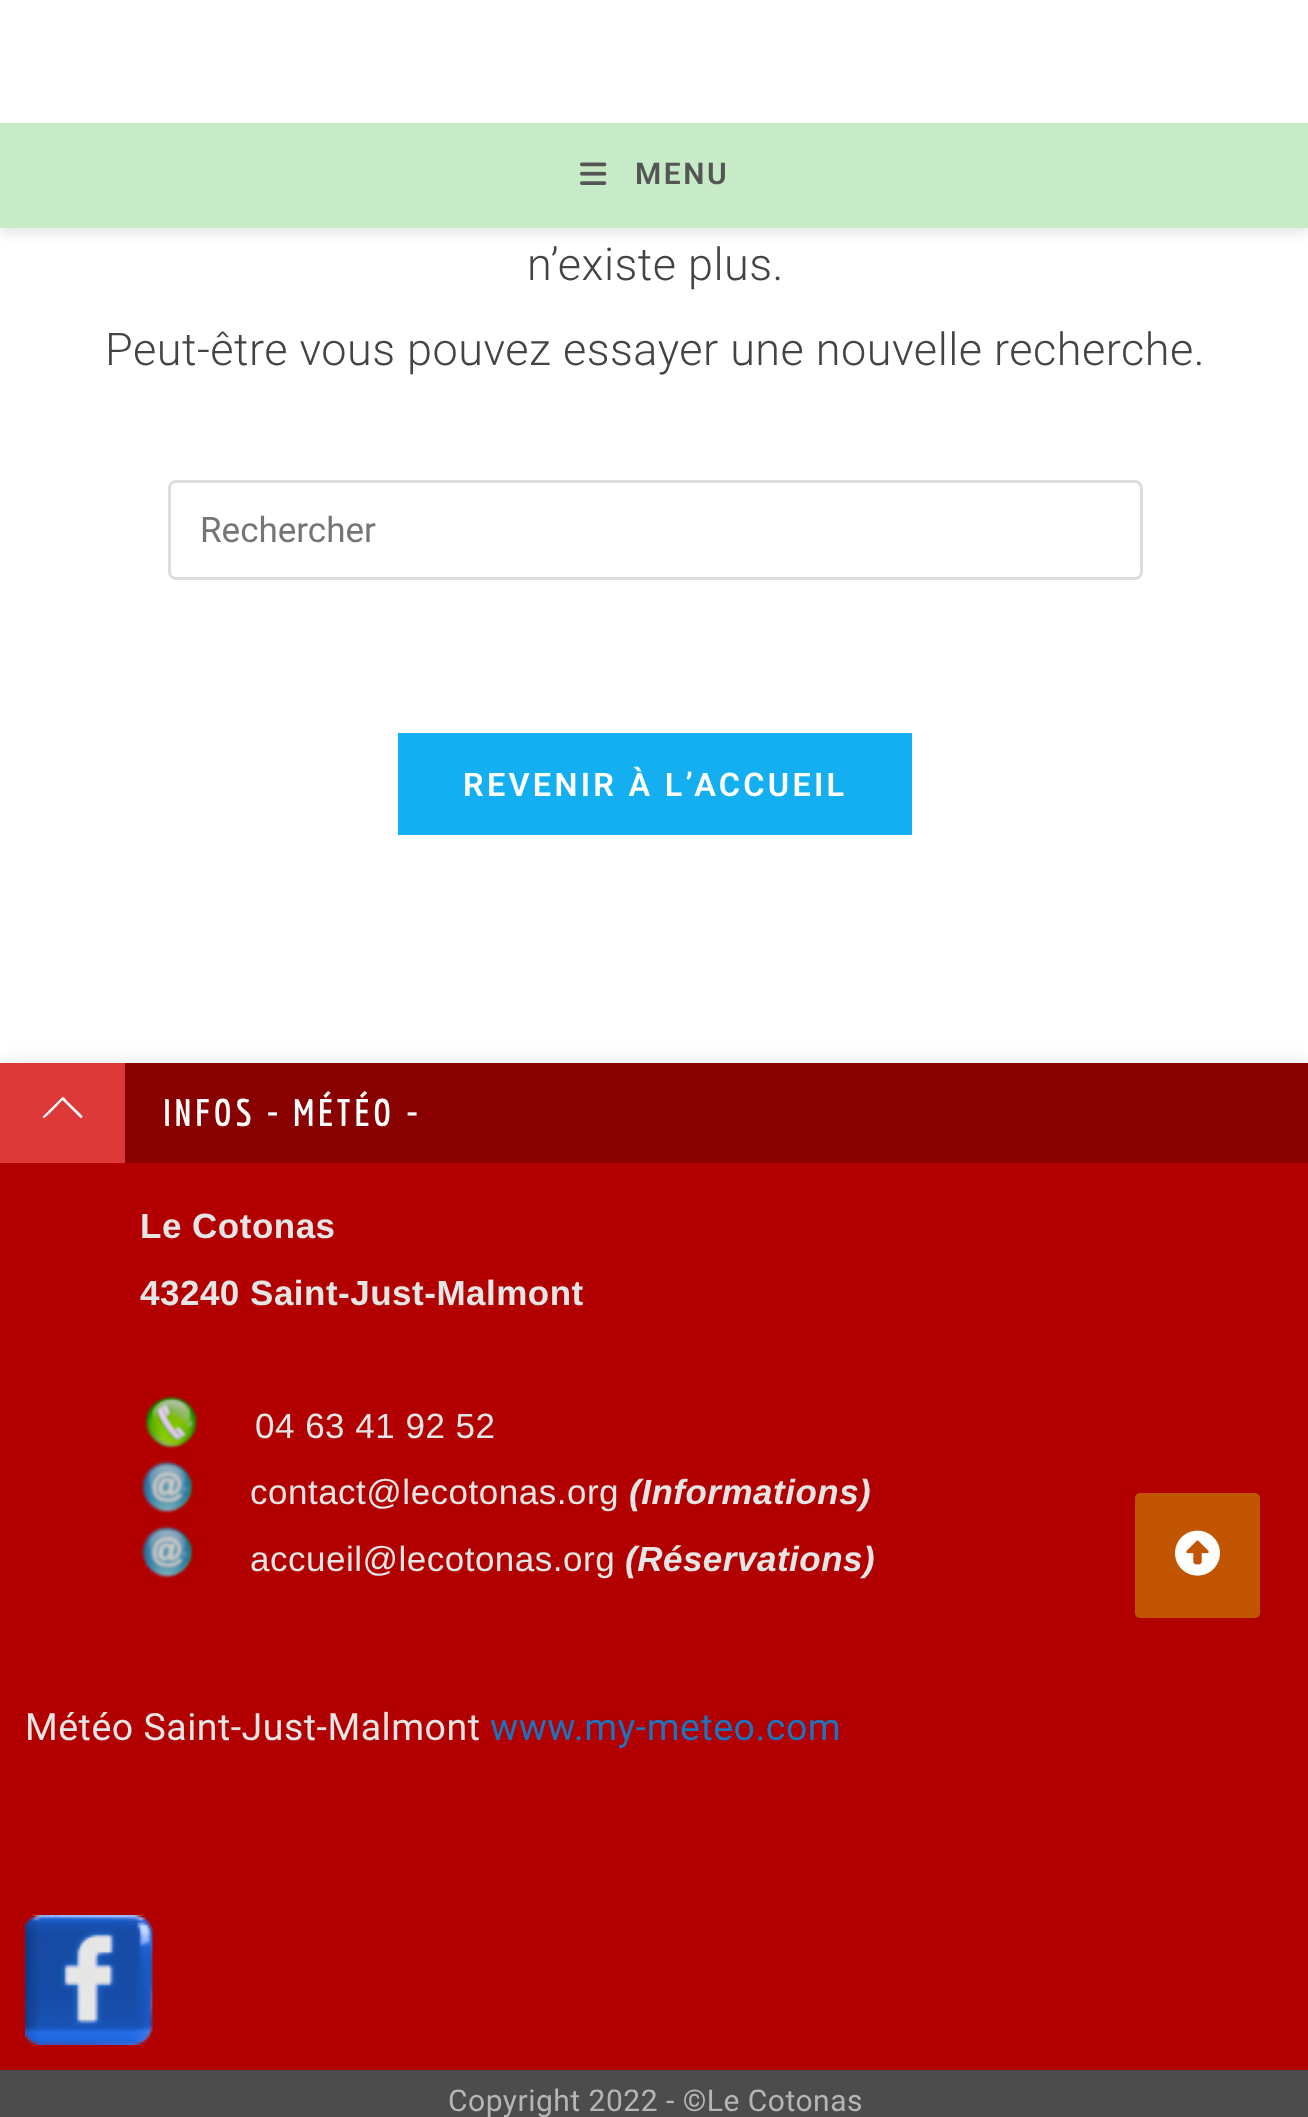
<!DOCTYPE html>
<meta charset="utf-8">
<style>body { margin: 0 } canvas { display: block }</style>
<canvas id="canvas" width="1308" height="2117"></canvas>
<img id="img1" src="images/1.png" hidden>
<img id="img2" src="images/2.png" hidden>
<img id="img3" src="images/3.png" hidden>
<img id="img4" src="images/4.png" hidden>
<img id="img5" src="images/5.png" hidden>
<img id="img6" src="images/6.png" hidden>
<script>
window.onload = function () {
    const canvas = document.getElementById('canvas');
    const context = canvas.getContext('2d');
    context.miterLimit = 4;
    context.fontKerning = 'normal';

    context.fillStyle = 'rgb(255, 255, 255)';
    context.fillRect(0, 0, 1308, 2117);
    context.fillStyle = 'rgba(0, 0, 0, 0.1)';
    context.filter = 'blur(6px)';
    context.beginPath();
    context.rect(0, 5, 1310, 228);
    context.fill();
    context.filter = 'none';
    context.fillStyle = 'rgb(255, 255, 255)';
    context.fillRect(0, 0, 1308, 123);
    context.fillStyle = 'rgb(199, 234, 199)';
    context.fillRect(0, 123, 1308, 105);
    context.drawImage(document.getElementById('img1'), 580, 162, 27, 23);
    context.beginPath();
    context.roundRect(169.5, 481.5, 972, 97, 6.5);
    context.strokeStyle = 'rgb(221, 221, 221)';
    context.lineWidth = 3;
    context.stroke();
    context.fillStyle = 'rgb(19, 175, 240)';
    context.fillRect(398, 733, 514, 102);
    context.fillStyle = 'rgba(0, 0, 0, 0.1)';
    context.filter = 'blur(10px)';
    context.beginPath();
    context.rect(0, 1063, 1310, 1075);
    context.fill();
    context.filter = 'none';
    context.fillStyle = 'rgb(137, 0, 0)';
    context.fillRect(125, 1063, 1183, 100);
    context.fillStyle = 'rgb(221, 57, 57)';
    context.fillRect(0, 1063, 125, 100);
    context.fillStyle = 'rgb(255, 255, 255)';
    context.beginPath();
    context.moveTo(43, 1116.5);
    context.bezierCurveTo(42.5, 1117, 43, 1118, 44, 1118);
    context.bezierCurveTo(45.5, 1118, 60.5, 1102.5, 62.5, 1100);
    context.lineTo(80.5, 1118);
    context.bezierCurveTo(82, 1118.5, 83, 1116.5, 82, 1115.5);
    context.lineTo(66.5, 1100.5);
    context.bezierCurveTo(66.5, 1100.5, 63.5, 1095.5, 62, 1097.5);
    context.closePath();
    context.fill();
    context.fillStyle = 'rgb(178, 0, 0)';
    context.fillRect(0, 1163, 1308, 907);
    context.fillStyle = 'rgb(193, 85, 1)';
    context.beginPath();
    context.roundRect(1135, 1493, 125, 125, 5);
    context.fill();
    context.drawImage(document.getElementById('img2'), 1175, 1530, 45, 46);
    context.drawImage(document.getElementById('img3'), 145, 1395, 53, 54);
    context.drawImage(document.getElementById('img4'), 140, 1460, 53, 54);
    context.drawImage(document.getElementById('img5'), 140, 1525, 53, 54);
    context.drawImage(document.getElementById('img6'), 25, 1915, 128, 130);
    context.fillStyle = 'rgb(76, 76, 76)';
    context.fillRect(0, 2070, 1308, 47);
    context.letterSpacing = '2.5px';
    context.font = '600 30px Roboto';
    context.fillStyle = 'rgb(85, 85, 85)';
    context.fillText('MENU', 635, 184);
    context.letterSpacing = '0.5px';
    context.font = '300 45px Roboto';
    context.fillStyle = 'rgb(68, 68, 68)';
    context.fillText('n’existe plus.', 527, 280);
    context.fillText('Peut-être vous pouvez essayer une nouvelle recherche.', 105, 365);
    context.letterSpacing = '0px';
    context.font = '35px Roboto';
    context.fillStyle = 'rgb(117, 117, 117)';
    context.fillText('Rechercher', 200, 542);
    context.letterSpacing = '3.25px';
    context.font = '600 32.5px Roboto';
    context.fillStyle = 'rgb(255, 255, 255)';
    context.fillText('REVENIR À L’ACCUEIL', 463, 796);
    context.letterSpacing = '3.75px';
    context.font = 'bold 37.5px Economica';
    context.fillText('INFOS - MÉTÉO -', 163, 1126);
    context.letterSpacing = '0.5px';
    context.font = 'bold 35px Liberation Sans';
    context.fillStyle = 'rgb(229, 229, 229)';
    context.fillText('Le Cotonas', 140, 1238);
    context.fillText('43240 Saint-Just-Malmont', 140, 1305);
    context.font = '35px Liberation Sans';
    context.fillText('04 63 41 92 52', 255, 1438);
    context.fillText('contact@lecotonas.org', 250, 1504);
    context.font = 'italic bold 35px Liberation Sans';
    context.fillText('(Informations)', 629, 1504);
    context.font = '35px Liberation Sans';
    context.fillText('accueil@lecotonas.org', 250, 1571);
    context.font = 'italic bold 35px Liberation Sans';
    context.fillText('(Réservations)', 625, 1571);
    context.font = '37.5px Roboto';
    context.fillText('Météo Saint-Just-Malmont', 25, 1740);
    context.fillStyle = 'rgb(30, 115, 190)';
    context.fillText('www.my-meteo.com', 490, 1740);
    context.font = '30px Roboto';
    context.fillStyle = 'rgb(181, 181, 181)';
    context.fillText('Copyright 2022 - ©Le Cotonas', 448, 2111);
};
</script>
